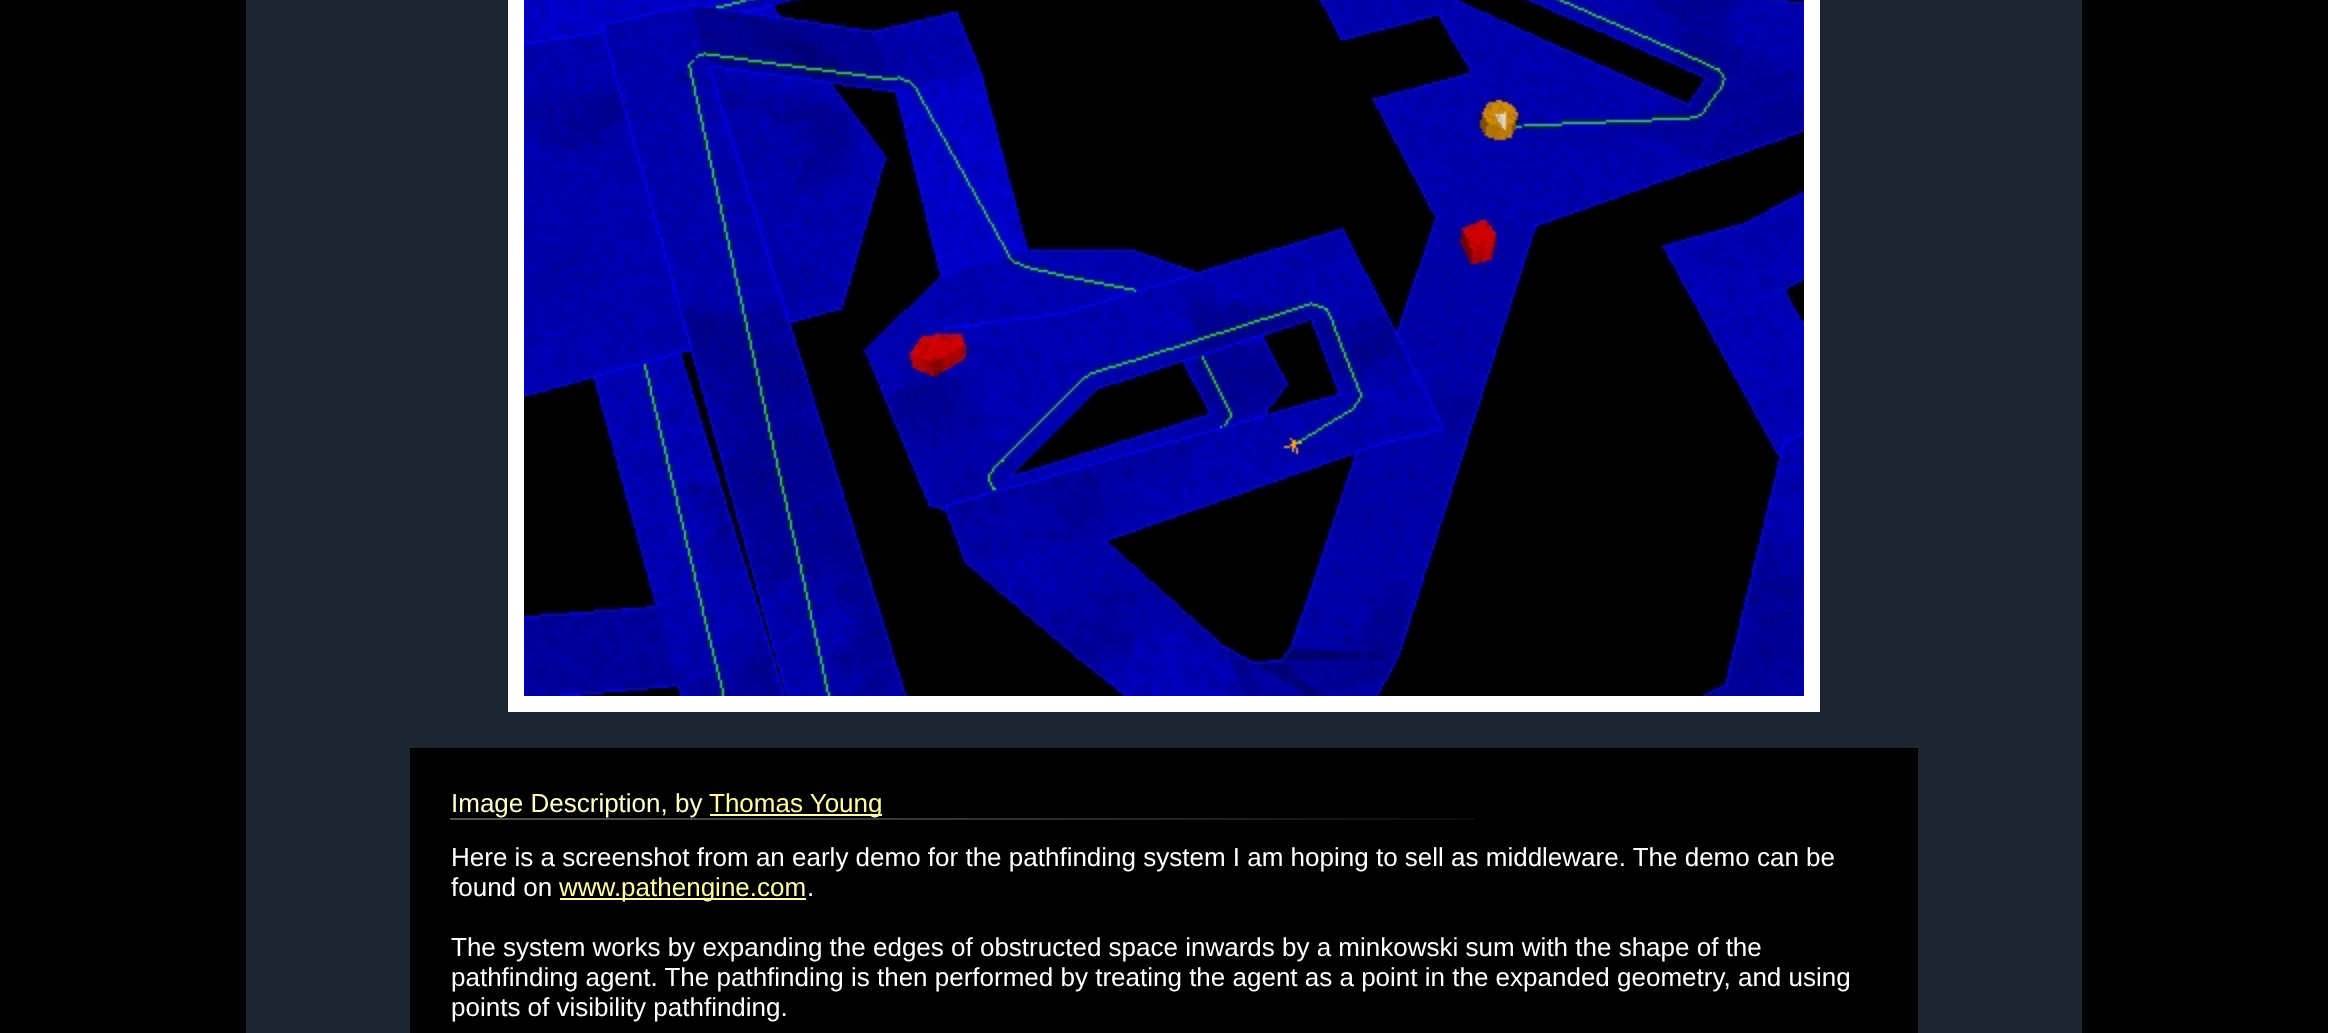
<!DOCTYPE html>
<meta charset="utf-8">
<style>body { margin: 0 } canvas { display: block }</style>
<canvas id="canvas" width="2328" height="1033"></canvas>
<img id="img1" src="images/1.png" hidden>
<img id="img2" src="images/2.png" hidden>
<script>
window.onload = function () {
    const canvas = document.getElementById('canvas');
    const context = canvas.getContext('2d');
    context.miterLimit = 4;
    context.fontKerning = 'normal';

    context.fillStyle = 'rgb(0, 0, 0)';
    context.fillRect(0, 0, 2328, 1033);
    context.fillStyle = 'rgb(29, 37, 48)';
    context.fillRect(246, 0, 1836, 1033);
    context.strokeStyle = 'rgb(255, 255, 255)';
    context.lineWidth = 16;
    context.strokeRect(516, -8, 1296, 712);
    context.drawImage(document.getElementById('img1'), 524, 0, 1280, 696);
    context.fillStyle = 'rgb(0, 0, 0)';
    context.fillRect(410, 748, 1508, 285);
    context.fillStyle = 'rgb(255, 252, 169)';
    context.fillRect(710, 814, 172, 2);
    context.drawImage(document.getElementById('img2'), 450, 818, 1024, 2);
    context.fillRect(560, 898, 246, 2);
    context.font = '26px Liberation Sans';
    context.fillStyle = 'rgb(255, 255, 204)';
    context.fillText('Image Description, by', 451, 812);
    context.fillStyle = 'rgb(255, 252, 169)';
    context.fillText('Thomas Young', 709, 812);
    context.fillStyle = 'rgb(255, 255, 255)';
    context.fillText('Here is a screenshot from an early demo for the pathfinding system I am hoping to sell as middleware. The demo can be', 451, 866);
    context.fillText('found on', 451, 896);
    context.fillStyle = 'rgb(255, 252, 169)';
    context.fillText('www.pathengine.com', 559, 896);
    context.fillStyle = 'rgb(255, 255, 255)';
    context.fillText('.', 807, 896);
    context.fillText('The system works by expanding the edges of obstructed space inwards by a minkowski sum with the shape of the', 451, 956);
    context.fillText('pathfinding agent. The pathfinding is then performed by treating the agent as a point in the expanded geometry, and using', 451, 986);
    context.fillText('points of visibility pathfinding.', 451, 1016);
};
</script>
